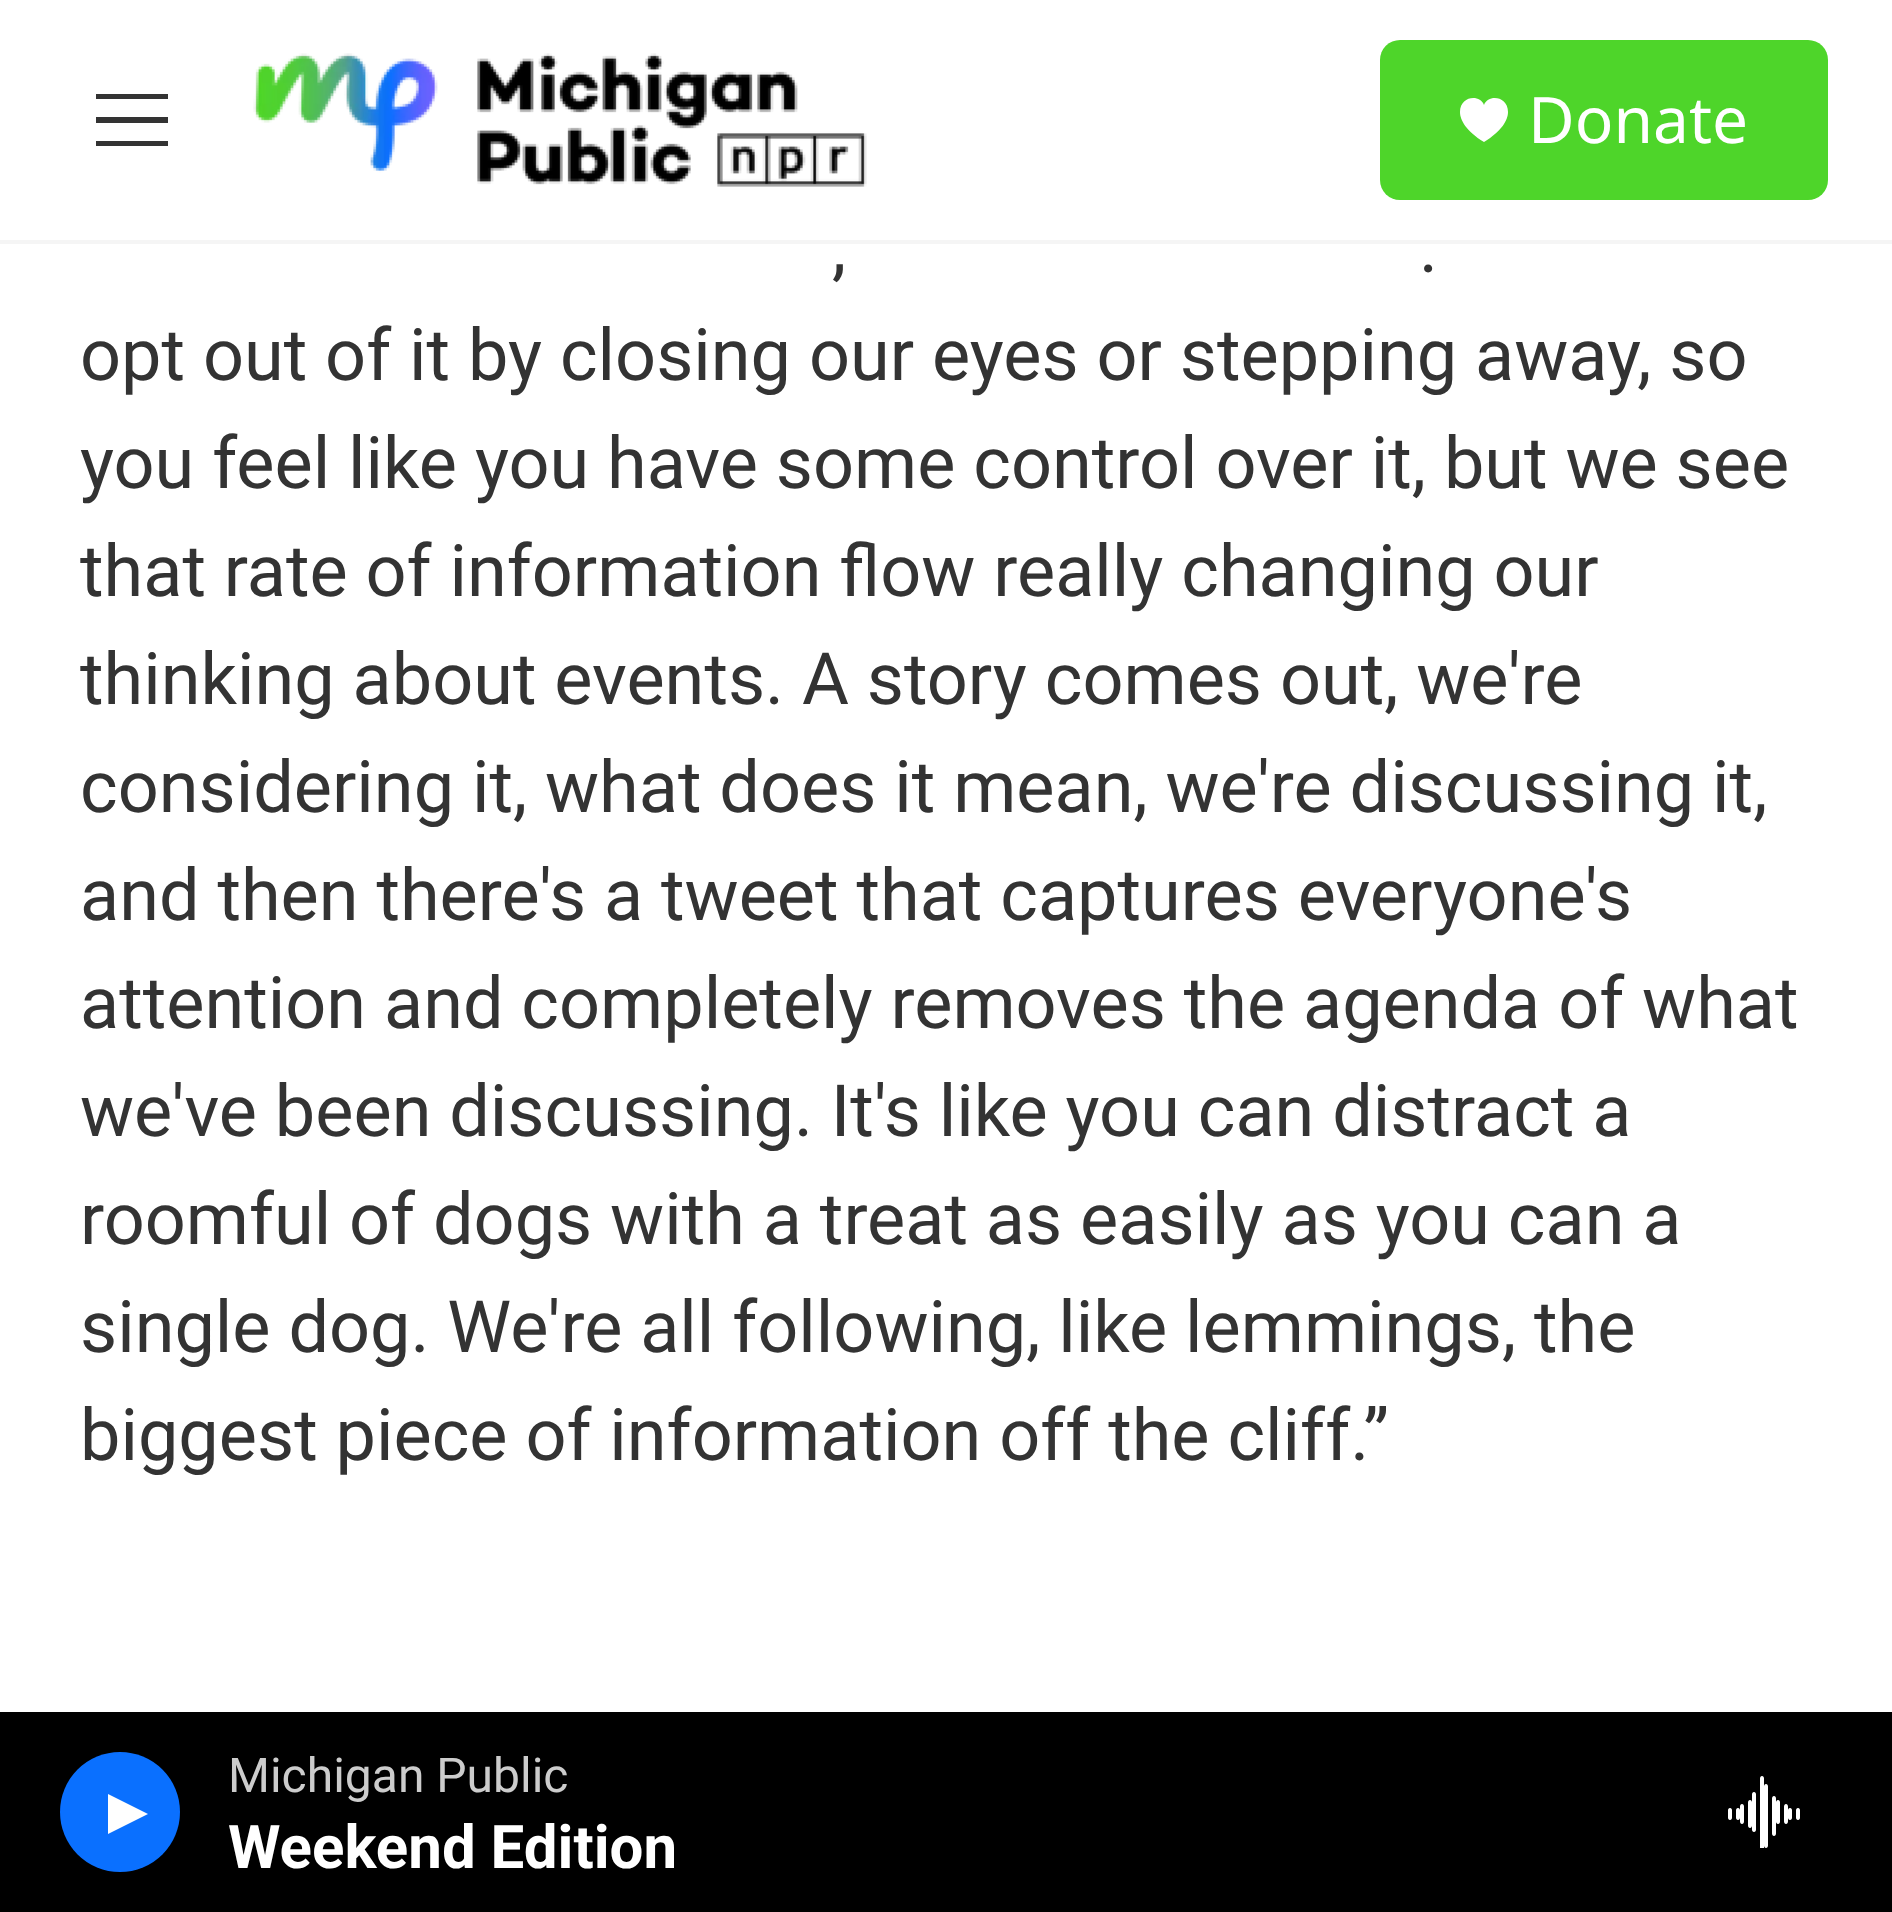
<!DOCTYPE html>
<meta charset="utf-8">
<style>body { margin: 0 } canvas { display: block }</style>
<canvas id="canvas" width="1892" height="1912"></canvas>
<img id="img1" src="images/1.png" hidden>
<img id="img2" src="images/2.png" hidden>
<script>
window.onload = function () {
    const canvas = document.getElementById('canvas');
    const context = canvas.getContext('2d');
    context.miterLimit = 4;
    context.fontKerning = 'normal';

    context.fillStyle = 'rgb(255, 255, 255)';
    context.fillRect(0, 0, 1892, 1912);
    context.fillStyle = 'rgb(245, 245, 245)';
    context.fillRect(0, 240, 1892, 4);
    context.fillStyle = 'rgb(51, 51, 51)';
    context.beginPath();
    context.moveTo(96, 123);
    context.lineTo(96, 117);
    context.lineTo(168, 117);
    context.lineTo(168, 123);
    context.closePath();
    context.moveTo(96, 99);
    context.lineTo(96, 94);
    context.lineTo(168, 94);
    context.lineTo(168, 99);
    context.closePath();
    context.moveTo(96, 146);
    context.lineTo(96, 141);
    context.lineTo(168, 141);
    context.lineTo(168, 146);
    context.closePath();
    context.fill('evenodd');
    context.drawImage(document.getElementById('img1'), 253, 53, 614, 134);
    context.fillStyle = 'rgb(78, 213, 42)';
    context.beginPath();
    context.roundRect(1380, 40, 448, 160, 20);
    context.fill();
    context.fillStyle = 'rgb(255, 255, 255)';
    context.beginPath();
    context.moveTo(1484, 105);
    context.bezierCurveTo(1480, 94, 1460, 96, 1460, 112);
    context.bezierCurveTo(1460, 120, 1466, 131, 1484, 142);
    context.bezierCurveTo(1502, 131, 1508, 120, 1508, 112);
    context.bezierCurveTo(1508, 96, 1488, 94, 1484, 105);
    context.closePath();
    context.fill();
    context.fillStyle = 'rgb(0, 0, 0)';
    context.fillRect(0, 1712, 1892, 200);
    context.fillStyle = 'rgb(10, 112, 255)';
    context.beginPath();
    context.arc(120, 1812, 60, 0, 2 * Math.PI);
    context.fill();
    context.fillStyle = 'rgb(255, 255, 255)';
    context.beginPath();
    context.moveTo(108, 1794);
    context.lineTo(148, 1814);
    context.lineTo(108, 1834);
    context.closePath();
    context.fill();
    context.drawImage(document.getElementById('img2'), 1728, 1776, 72, 72);
    context.font = '64px Noto Sans';
    context.fillText('Donate', 1528, 143);
    context.font = '48px Roboto';
    context.fillStyle = 'rgb(204, 204, 204)';
    context.fillText('Michigan Public', 228, 1792);
    context.font = 'bold 60px Roboto';
    context.fillStyle = 'rgb(255, 255, 255)';
    context.fillText('Weekend Edition', 228, 1868);
    context.font = '72px Roboto';
    context.fillStyle = 'rgb(51, 51, 51)';
    context.fillText(',', 832, 272);
    context.fillText('.', 1419, 272);
    context.fillText('opt out of it by closing our eyes or stepping away, so', 80, 380);
    context.fillText('you feel like you have some control over it, but we see', 80, 488);
    context.fillText('that rate of information flow really changing our', 80, 596);
    context.fillText('thinking about events. A story comes out, we\'re', 80, 704);
    context.fillText('considering it, what does it mean, we\'re discussing it,', 80, 812);
    context.fillText('and then there\'s a tweet that captures everyone\'s', 80, 920);
    context.fillText('attention and completely removes the agenda of what', 80, 1028);
    context.fillText('we\'ve been discussing. It\'s like you can distract a', 80, 1136);
    context.fillText('roomful of dogs with a treat as easily as you can a', 80, 1244);
    context.fillText('single dog. We\'re all following, like lemmings, the', 80, 1352);
    context.fillText('biggest piece of information off the cliff.”', 80, 1460);
};
</script>
